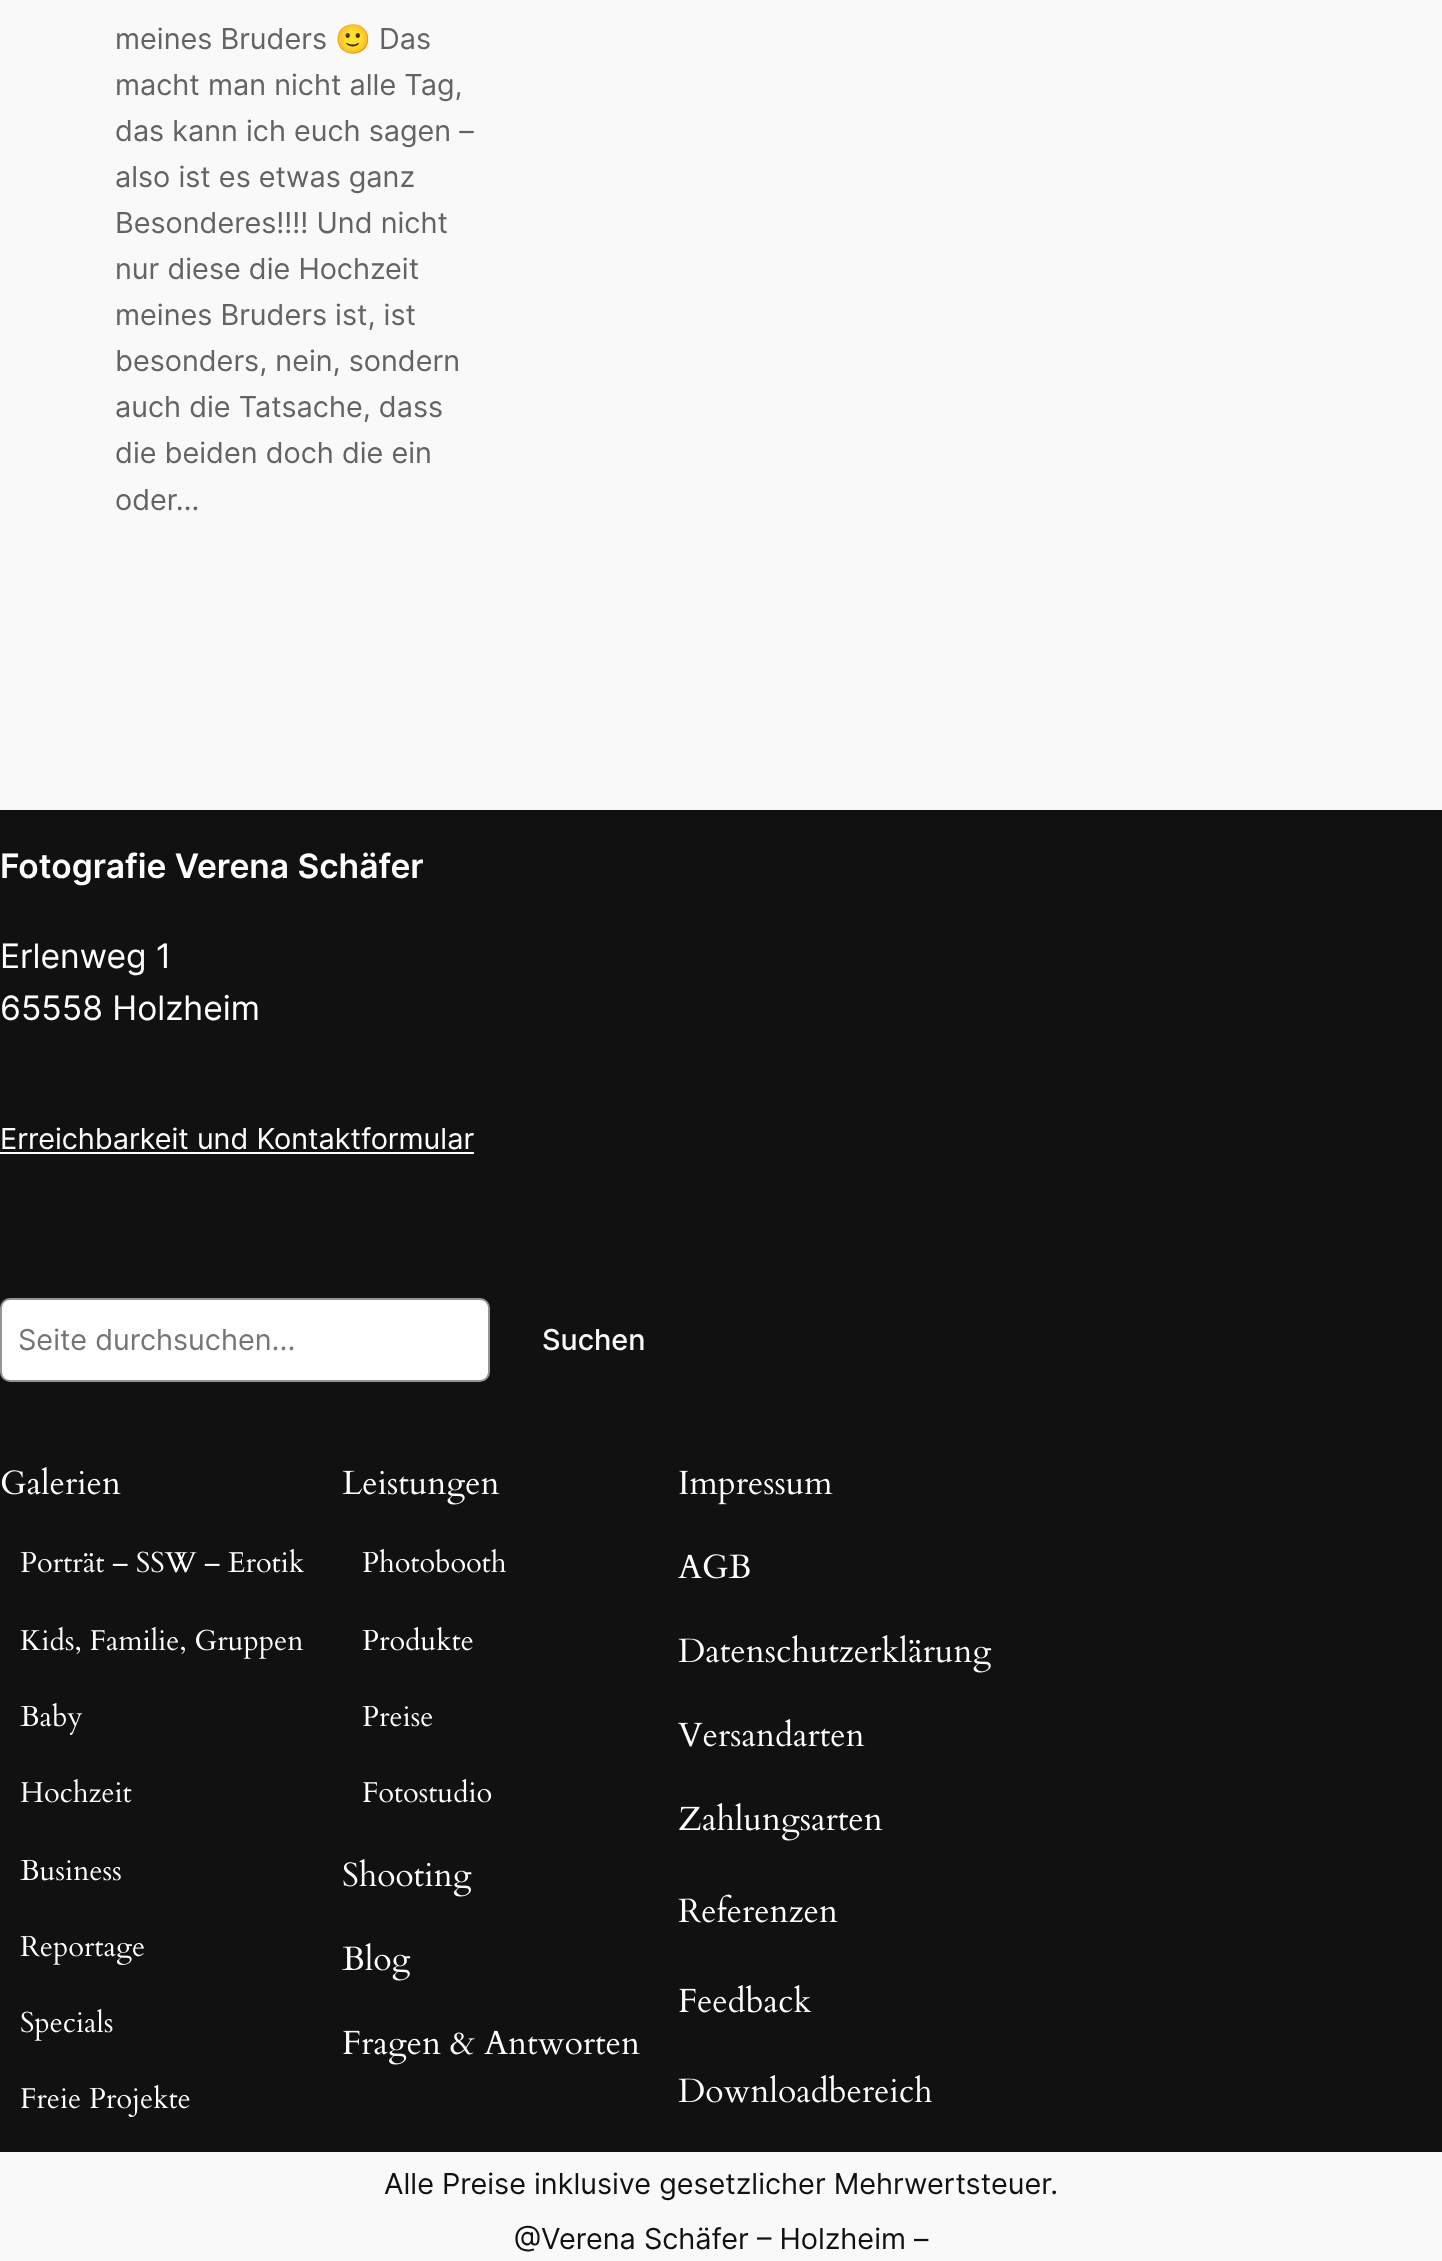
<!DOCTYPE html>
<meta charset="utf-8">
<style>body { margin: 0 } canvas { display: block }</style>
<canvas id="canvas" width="1442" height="2261"></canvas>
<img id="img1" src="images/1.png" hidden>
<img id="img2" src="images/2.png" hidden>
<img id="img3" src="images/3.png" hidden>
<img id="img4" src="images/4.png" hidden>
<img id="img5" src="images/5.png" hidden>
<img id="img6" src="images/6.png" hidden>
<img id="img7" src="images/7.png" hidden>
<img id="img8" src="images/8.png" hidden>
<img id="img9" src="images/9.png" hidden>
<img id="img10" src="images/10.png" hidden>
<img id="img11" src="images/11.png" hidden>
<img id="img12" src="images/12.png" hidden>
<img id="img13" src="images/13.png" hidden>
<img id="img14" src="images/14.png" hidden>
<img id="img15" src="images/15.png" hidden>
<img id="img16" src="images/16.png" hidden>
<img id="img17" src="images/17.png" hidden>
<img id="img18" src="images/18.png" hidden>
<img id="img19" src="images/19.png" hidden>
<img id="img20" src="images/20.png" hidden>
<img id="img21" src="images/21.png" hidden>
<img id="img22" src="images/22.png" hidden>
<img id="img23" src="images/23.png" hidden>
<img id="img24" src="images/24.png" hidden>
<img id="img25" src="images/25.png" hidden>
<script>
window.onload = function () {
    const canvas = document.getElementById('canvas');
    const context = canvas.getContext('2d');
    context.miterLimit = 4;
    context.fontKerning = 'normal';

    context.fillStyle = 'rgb(249, 249, 249)';
    context.fillRect(0, 0, 1442, 2261);
    context.fillStyle = 'rgb(17, 17, 17)';
    context.fillRect(0, 810, 1442, 1342);
    context.fillStyle = 'rgb(255, 255, 255)';
    context.fillRect(0, 1152, 474, 2);
    context.beginPath();
    context.roundRect(1, 1299, 488, 82, 9);
    context.fill();
    context.strokeStyle = 'rgb(148, 148, 148)';
    context.lineWidth = 2;
    context.stroke();
    context.drawImage(document.getElementById('img1'), 1, 1467, 120, 28);
    context.drawImage(document.getElementById('img2'), 20, 1548, 284, 25);
    context.drawImage(document.getElementById('img3'), 20, 1626, 284, 33);
    context.drawImage(document.getElementById('img4'), 20, 1702, 63, 33);
    context.drawImage(document.getElementById('img5'), 20, 1778, 112, 25);
    context.drawImage(document.getElementById('img6'), 20, 1859, 101, 22);
    context.drawImage(document.getElementById('img7'), 20, 1935, 124, 30);
    context.drawImage(document.getElementById('img8'), 21, 2008, 92, 33);
    context.drawImage(document.getElementById('img9'), 21, 2084, 169, 33);
    context.drawImage(document.getElementById('img10'), 342, 1470, 158, 35);
    context.drawImage(document.getElementById('img11'), 362, 1548, 145, 25);
    context.drawImage(document.getElementById('img12'), 362, 1626, 111, 25);
    context.drawImage(document.getElementById('img13'), 362, 1705, 70, 22);
    context.drawImage(document.getElementById('img14'), 363, 1778, 129, 25);
    context.drawImage(document.getElementById('img15'), 343, 1859, 129, 38);
    context.drawImage(document.getElementById('img16'), 342, 1943, 69, 38);
    context.drawImage(document.getElementById('img17'), 343, 2030, 297, 35);
    context.drawImage(document.getElementById('img18'), 679, 1470, 154, 35);
    context.drawImage(document.getElementById('img19'), 678, 1554, 72, 25);
    context.drawImage(document.getElementById('img20'), 678, 1635, 314, 38);
    context.drawImage(document.getElementById('img21'), 678, 1719, 187, 28);
    context.drawImage(document.getElementById('img22'), 679, 1803, 204, 38);
    context.drawImage(document.getElementById('img23'), 678, 1894, 160, 29);
    context.drawImage(document.getElementById('img24'), 679, 1985, 133, 28);
    context.drawImage(document.getElementById('img25'), 678, 2075, 255, 28);
    context.font = '28.8px Inter';
    context.fillStyle = 'rgb(99, 99, 99)';
    context.fillText('meines Bruders', 115, 49);
    context.font = '28.8px Noto Color Emoji';
    context.fillText('🙂', 335, 49);
    context.font = '28.8px Inter';
    context.fillText('Das', 379, 49);
    context.fillText('macht man nicht alle Tag,', 115, 95);
    context.fillText('das kann ich euch sagen –', 115, 141);
    context.fillText('also ist es etwas ganz', 115, 187);
    context.fillText('Besonderes!!!! Und nicht', 115, 233);
    context.fillText('nur diese die Hochzeit', 115, 279);
    context.fillText('meines Bruders ist, ist', 115, 325);
    context.fillText('besonders, nein, sondern', 115, 371);
    context.fillText('auch die Tatsache, dass', 115, 417);
    context.fillText('die beiden doch die ein', 115, 463);
    context.fillText('oder…', 115, 510);
    context.font = '600 33.6px Inter';
    context.fillStyle = 'rgb(255, 255, 255)';
    context.fillText('Fotografie Verena Schäfer', 0, 878);
    context.font = '33.6px Inter';
    context.fillText('Erlenweg 1', 0, 968);
    context.fillText('65558 Holzheim', 0, 1020);
    context.font = '28.8px Inter';
    context.fillText('Erreichbarkeit und Kontaktformular', 0, 1149);
    context.fillStyle = 'rgb(117, 117, 117)';
    context.fillText('Seite durchsuchen...', 18, 1350);
    context.font = '500 28.8px Inter';
    context.fillStyle = 'rgb(249, 249, 249)';
    context.fillText('Suchen', 542, 1350);
    context.font = '28.8px Inter';
    context.fillStyle = 'rgb(17, 17, 17)';
    context.fillText('Alle Preise inklusive gesetzlicher Mehrwertsteuer.', 384, 2194);
    context.fillText('@Verena Schäfer – Holzheim –', 514, 2249);
};
</script>
